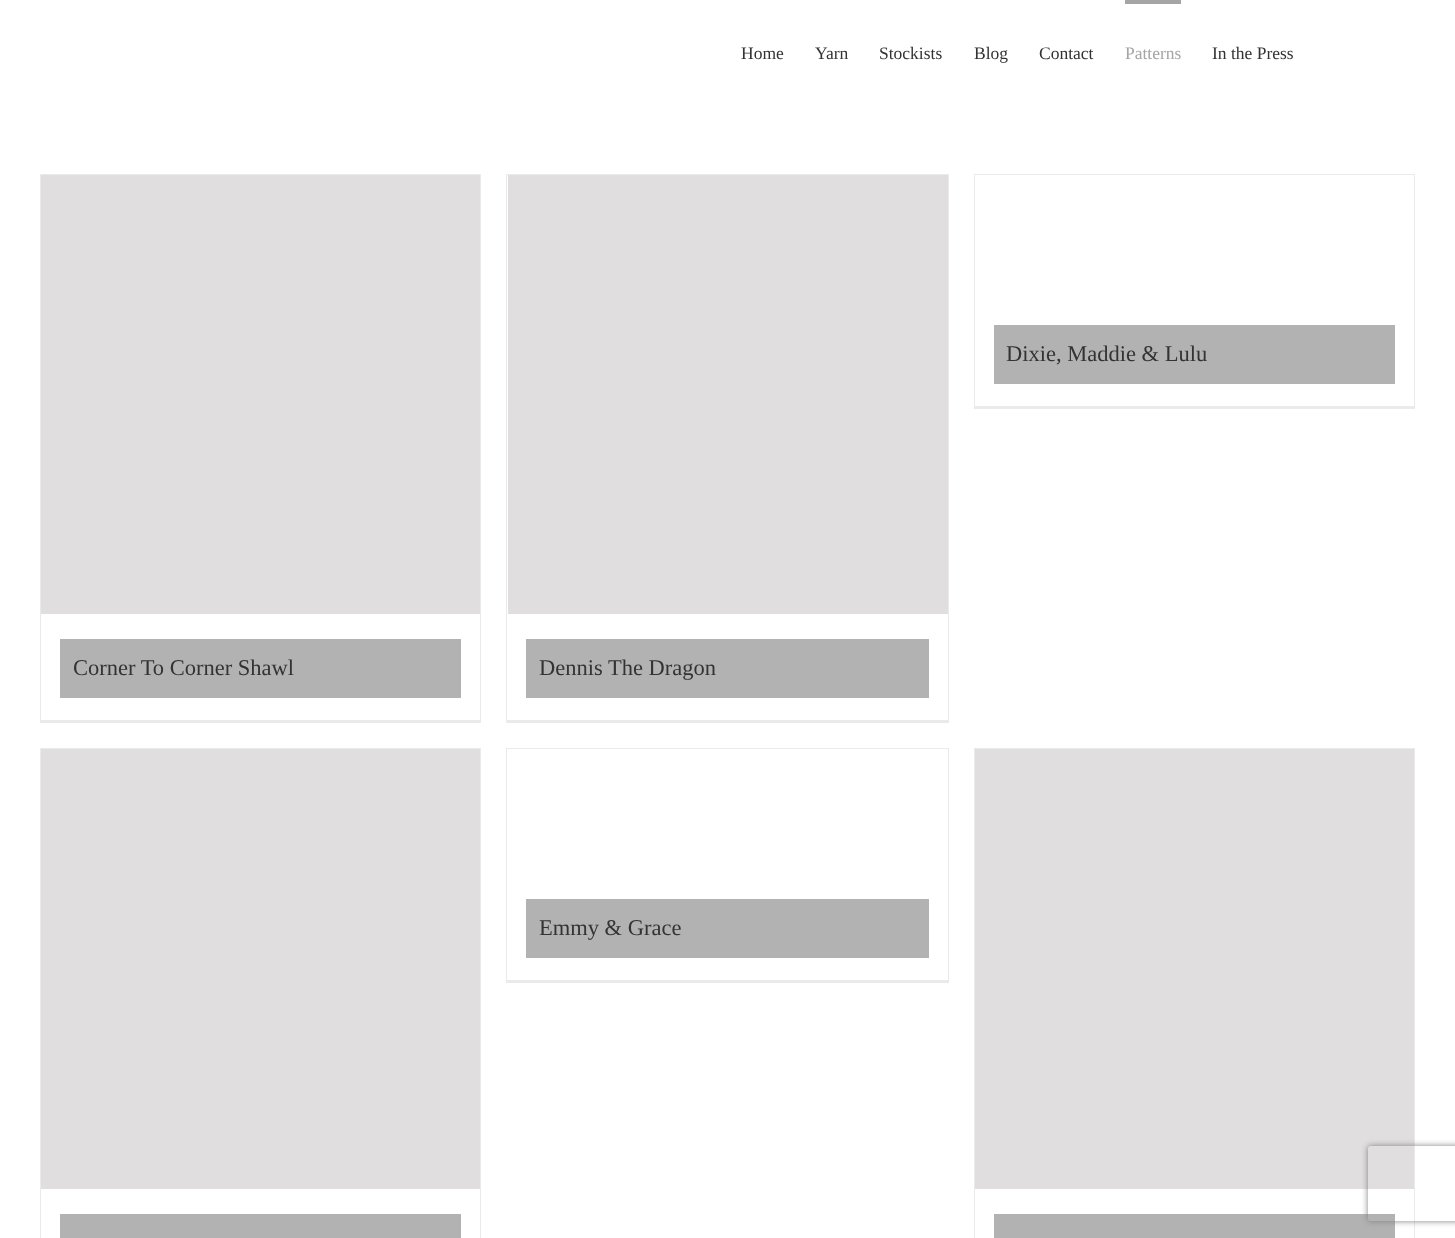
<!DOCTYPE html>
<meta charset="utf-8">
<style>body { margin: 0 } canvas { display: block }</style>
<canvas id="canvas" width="1455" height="1238"></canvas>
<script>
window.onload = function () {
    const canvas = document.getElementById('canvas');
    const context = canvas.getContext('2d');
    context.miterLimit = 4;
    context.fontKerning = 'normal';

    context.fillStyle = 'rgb(255, 255, 255)';
    context.fillRect(0, 0, 1455, 1238);
    context.fillStyle = 'rgb(165, 165, 165)';
    context.fillRect(1125, 0, 56, 4);
    context.fillStyle = 'rgb(235, 234, 234)';
    context.fillRect(974, 174, 441, 1);
    context.fillRect(1414, 174, 1, 235);
    context.fillRect(974, 406, 441, 3);
    context.fillRect(974, 174, 1, 235);
    context.fillStyle = 'rgb(178, 178, 178)';
    context.fillRect(994, 325, 401, 59);
    context.fillStyle = 'rgb(235, 234, 234)';
    context.fillRect(40, 174, 441, 1);
    context.fillRect(480, 174, 1, 549);
    context.fillRect(40, 720, 441, 3);
    context.fillRect(40, 174, 1, 549);
    context.fillStyle = 'rgb(224, 222, 222)';
    context.fillRect(41, 175, 439, 439);
    context.fillStyle = 'rgb(178, 178, 178)';
    context.fillRect(60, 639, 401, 59);
    context.fillStyle = 'rgb(235, 234, 234)';
    context.fillRect(506, 174, 443, 1);
    context.fillRect(948, 174, 1, 549);
    context.fillRect(506, 720, 443, 3);
    context.fillRect(506, 174, 1, 549);
    context.fillStyle = 'rgb(224, 222, 222)';
    context.fillRect(508, 175, 440, 439);
    context.fillStyle = 'rgb(178, 178, 178)';
    context.fillRect(526, 639, 403, 59);
    context.fillStyle = 'rgb(235, 234, 234)';
    context.fillRect(40, 748, 441, 1);
    context.fillRect(480, 748, 1, 490);
    context.fillRect(40, 748, 1, 490);
    context.fillStyle = 'rgb(224, 222, 222)';
    context.fillRect(41, 749, 439, 440);
    context.fillStyle = 'rgb(178, 178, 178)';
    context.fillRect(60, 1214, 401, 24);
    context.fillStyle = 'rgb(235, 234, 234)';
    context.fillRect(506, 748, 443, 1);
    context.fillRect(948, 748, 1, 235);
    context.fillRect(506, 980, 443, 3);
    context.fillRect(506, 748, 1, 235);
    context.fillStyle = 'rgb(178, 178, 178)';
    context.fillRect(526, 899, 403, 59);
    context.fillStyle = 'rgb(235, 234, 234)';
    context.fillRect(974, 748, 441, 1);
    context.fillRect(1414, 748, 1, 490);
    context.fillRect(974, 748, 1, 490);
    context.fillStyle = 'rgb(224, 222, 222)';
    context.fillRect(975, 749, 439, 440);
    context.fillStyle = 'rgb(178, 178, 178)';
    context.fillRect(994, 1214, 401, 24);
    context.save();
    context.beginPath();
    context.moveTo(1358, 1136);
    context.lineTo(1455, 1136);
    context.lineTo(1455, 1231);
    context.lineTo(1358, 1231);
    context.closePath();
    context.moveTo(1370.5, 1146);
    context.lineTo(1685.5, 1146);
    context.bezierCurveTo(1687, 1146, 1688, 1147, 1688, 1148.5);
    context.lineTo(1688, 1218.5);
    context.bezierCurveTo(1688, 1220, 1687, 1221, 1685.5, 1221);
    context.lineTo(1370.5, 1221);
    context.bezierCurveTo(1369, 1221, 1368, 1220, 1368, 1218.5);
    context.lineTo(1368, 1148.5);
    context.bezierCurveTo(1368, 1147, 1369, 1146, 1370.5, 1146);
    context.closePath();
    context.clip('evenodd');
    context.fillStyle = 'rgb(128, 128, 128)';
    context.filter = 'blur(3px)';
    context.beginPath();
    context.roundRect(1368, 1146, 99, 75, 2.5);
    context.fill();
    context.filter = 'none';
    context.restore();
    context.font = '17.5px Liberation Serif';
    context.fillStyle = 'rgb(51, 51, 51)';
    context.fillText('Home', 741, 59);
    context.fillText('Yarn', 815, 59);
    context.fillText('Stockists', 879, 59);
    context.fillText('Blog', 974, 59);
    context.fillText('Contact', 1039, 59);
    context.fillStyle = 'rgb(165, 165, 165)';
    context.fillText('Patterns', 1125, 59);
    context.fillStyle = 'rgb(51, 51, 51)';
    context.fillText('In the Press', 1212, 59);
    context.font = '22.5px Liberation Serif';
    context.fillText('Dixie, Maddie & Lulu', 1006, 361);
    context.fillText('Corner To Corner Shawl', 73, 675);
    context.fillText('Dennis The Dragon', 539, 675);
    context.fillText('Emmy & Grace', 539, 935);
};
</script>
